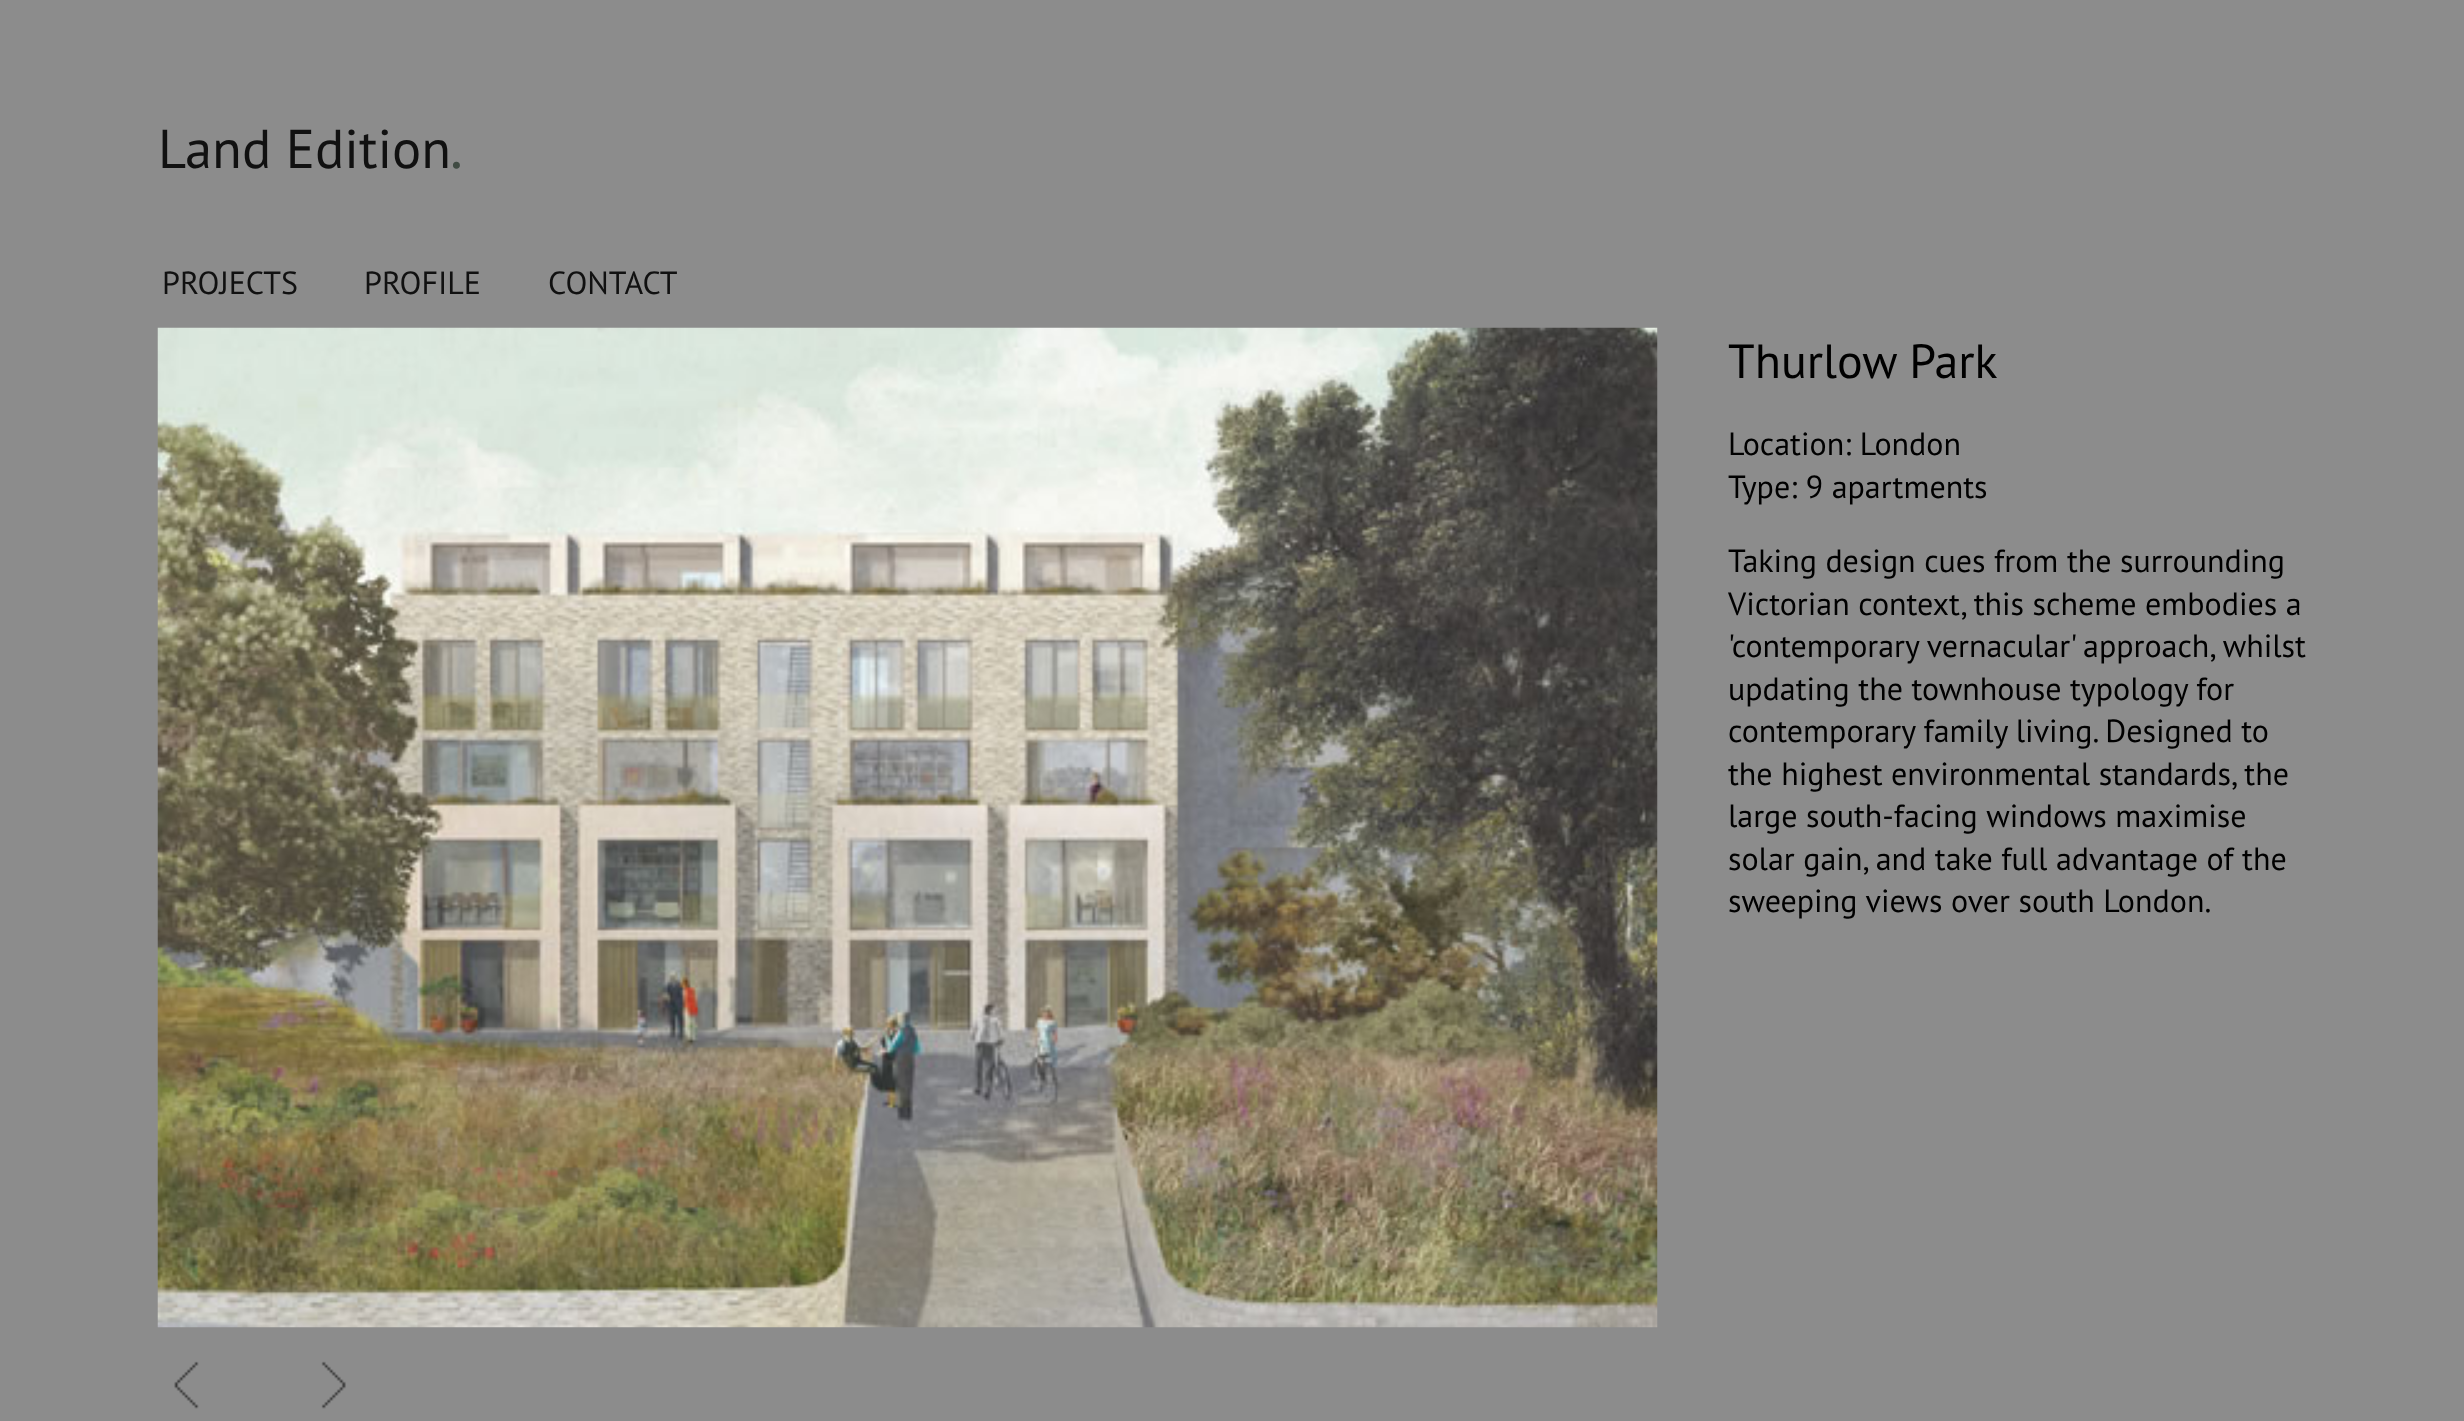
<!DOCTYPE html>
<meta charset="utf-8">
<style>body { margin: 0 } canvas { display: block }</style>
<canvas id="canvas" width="2464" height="1421"></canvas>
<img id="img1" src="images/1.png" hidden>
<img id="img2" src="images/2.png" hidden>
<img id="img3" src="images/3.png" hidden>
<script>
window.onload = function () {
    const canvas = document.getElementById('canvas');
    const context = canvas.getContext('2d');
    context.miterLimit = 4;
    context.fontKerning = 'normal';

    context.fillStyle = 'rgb(140, 140, 140)';
    context.fillRect(0, 0, 2464, 1421);
    context.drawImage(document.getElementById('img1'), 157, 327, 1501, 1001);
    context.drawImage(document.getElementById('img2'), 174, 1361, 25, 48);
    context.drawImage(document.getElementById('img3'), 321, 1361, 25, 48);
    context.font = '54.5px PT Sans';
    context.fillStyle = 'rgb(17, 17, 17)';
    context.fillText('Land Edition', 158, 168);
    context.font = '60px PT Sans';
    context.fillStyle = 'rgb(64, 75, 67)';
    context.fillText('.', 450, 168);
    context.font = '32px PT Sans';
    context.fillStyle = 'rgb(17, 17, 17)';
    context.fillText('PROJECTS', 162, 294);
    context.fillText('PROFILE', 364, 294);
    context.fillText('CONTACT', 548, 294);
    context.font = '48px PT Sans';
    context.fillStyle = 'rgb(0, 0, 0)';
    context.fillText('Thurlow Park', 1728, 378);
    context.font = '32px PT Sans';
    context.fillText('Location: London', 1728, 455);
    context.fillText('Type: 9 apartments', 1728, 498);
    context.fillText('Taking design cues from the surrounding', 1728, 572);
    context.fillText('Victorian context, this scheme embodies a', 1728, 615);
    context.fillText('\'contemporary vernacular\' approach, whilst', 1728, 657);
    context.fillText('updating the townhouse typology for', 1728, 700);
    context.fillText('contemporary family living. Designed to', 1728, 742);
    context.fillText('the highest environmental standards, the', 1728, 785);
    context.fillText('large south-facing windows maximise', 1728, 827);
    context.fillText('solar gain, and take full advantage of the', 1728, 870);
    context.fillText('sweeping views over south London.', 1728, 912);
};
</script>
